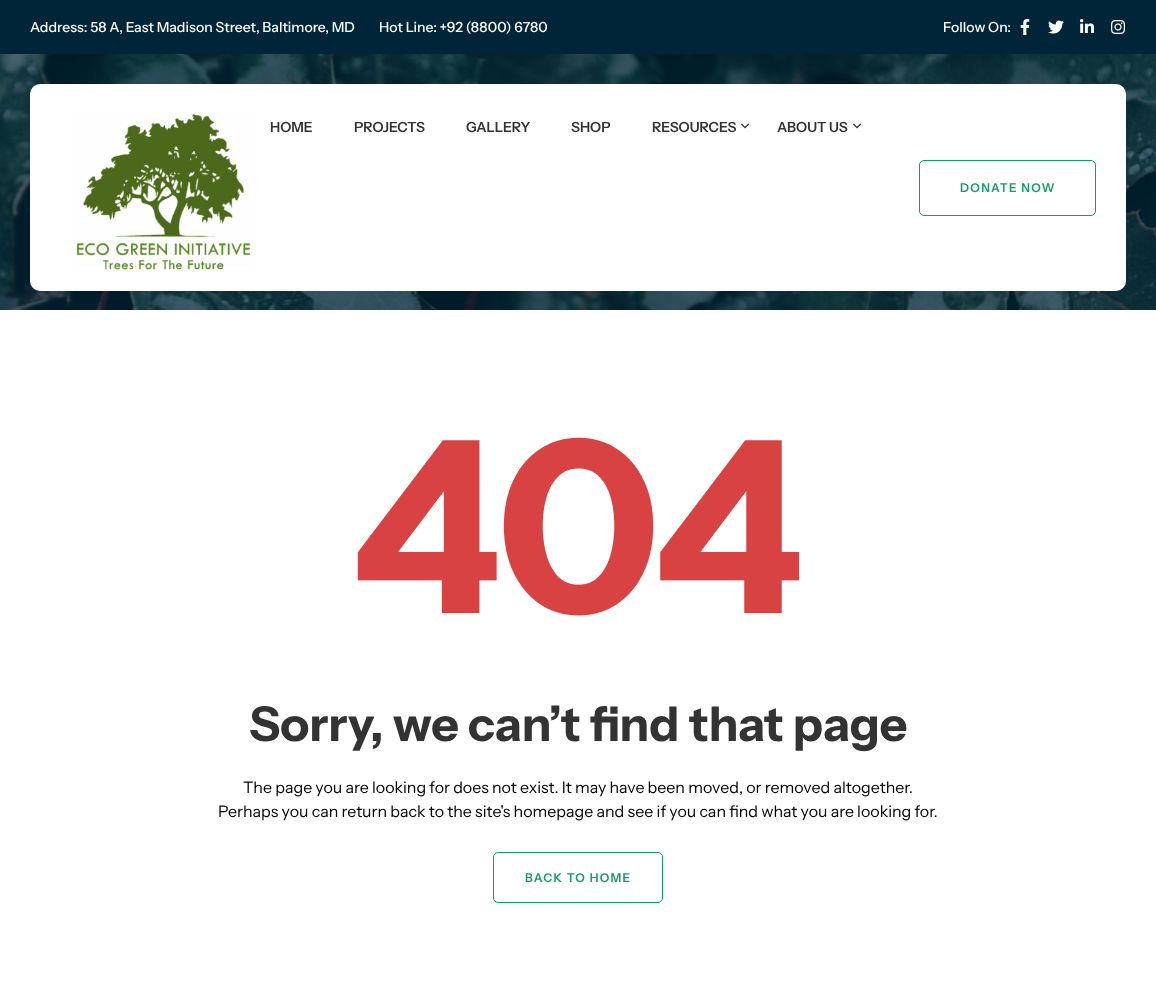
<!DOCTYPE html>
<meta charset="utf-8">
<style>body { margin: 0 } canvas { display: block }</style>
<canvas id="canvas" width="1156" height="999"></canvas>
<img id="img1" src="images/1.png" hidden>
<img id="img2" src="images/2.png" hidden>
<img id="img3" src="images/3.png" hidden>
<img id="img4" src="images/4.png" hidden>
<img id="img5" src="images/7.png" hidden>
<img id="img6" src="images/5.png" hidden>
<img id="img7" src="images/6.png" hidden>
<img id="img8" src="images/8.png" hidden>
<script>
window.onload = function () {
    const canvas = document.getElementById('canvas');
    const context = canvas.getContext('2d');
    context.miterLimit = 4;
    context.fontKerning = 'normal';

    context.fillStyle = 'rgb(255, 255, 255)';
    context.fillRect(0, 0, 1156, 999);
    context.fillStyle = 'rgb(0, 37, 57)';
    context.fillRect(0, 0, 1156, 54);
    context.drawImage(document.getElementById('img1'), 1020, 19, 10, 16);
    context.drawImage(document.getElementById('img2'), 1048, 20, 16, 14);
    context.drawImage(document.getElementById('img3'), 1080, 19, 14, 14);
    context.drawImage(document.getElementById('img4'), 1111, 20, 14, 14);
    context.drawImage(document.getElementById('img5'), 0, 54, 1156, 256);
    context.fillStyle = 'rgb(255, 255, 255)';
    context.beginPath();
    context.roundRect(30, 84, 1096, 207, 10);
    context.fill();
    context.drawImage(document.getElementById('img6'), 76, 113, 175, 157);
    context.drawImage(document.getElementById('img7'), 741, 123, 9, 6);
    context.drawImage(document.getElementById('img7'), 853, 123, 9, 6);
    context.beginPath();
    context.roundRect(919.5, 160.5, 176, 55, 4.5);
    context.strokeStyle = 'rgb(19, 156, 99)';
    context.stroke();
    context.drawImage(document.getElementById('img8'), 357, 437, 442, 179);
    context.beginPath();
    context.roundRect(493.5, 852.5, 169, 50, 4.5);
    context.stroke();
    context.font = '500 14px Instrument Sans';
    context.fillText('Address: 58 A, East Madison Street, Baltimore, MD', 30, 32);
    context.fillText('Hot Line: +92 (8800) 6780', 379, 32);
    context.fillText('Follow On:', 943, 32);
    context.font = '600 14px Instrument Sans';
    context.fillStyle = 'rgb(51, 51, 51)';
    context.fillText('HOME', 270, 132);
    context.fillText('PROJECTS', 354, 132);
    context.fillText('GALLERY', 466, 132);
    context.fillText('SHOP', 571, 132);
    context.fillText('RESOURCES', 652, 132);
    context.fillText('ABOUT US', 777, 132);
    context.letterSpacing = '1.25px';
    context.font = '600 12px Instrument Sans';
    context.fillStyle = 'rgb(19, 156, 99)';
    context.fillText('DONATE NOW', 960, 192);
    context.letterSpacing = '0px';
    context.font = 'bold 48px Instrument Sans';
    context.fillStyle = 'rgb(51, 51, 51)';
    context.fillText('Sorry, we can’t find that page', 249, 741);
    context.font = '16px Instrument Sans';
    context.fillStyle = 'rgb(0, 0, 0)';
    context.fillText('The page you are looking for does not exist. It may have been moved, or removed altogether.', 243, 793);
    context.fillText('Perhaps you can return back to the site\'s homepage and see if you can find what you are looking for.', 218, 817);
    context.letterSpacing = '1.25px';
    context.font = '600 12px Instrument Sans';
    context.fillStyle = 'rgb(19, 156, 99)';
    context.fillText('BACK TO HOME', 525, 882);
};
</script>
